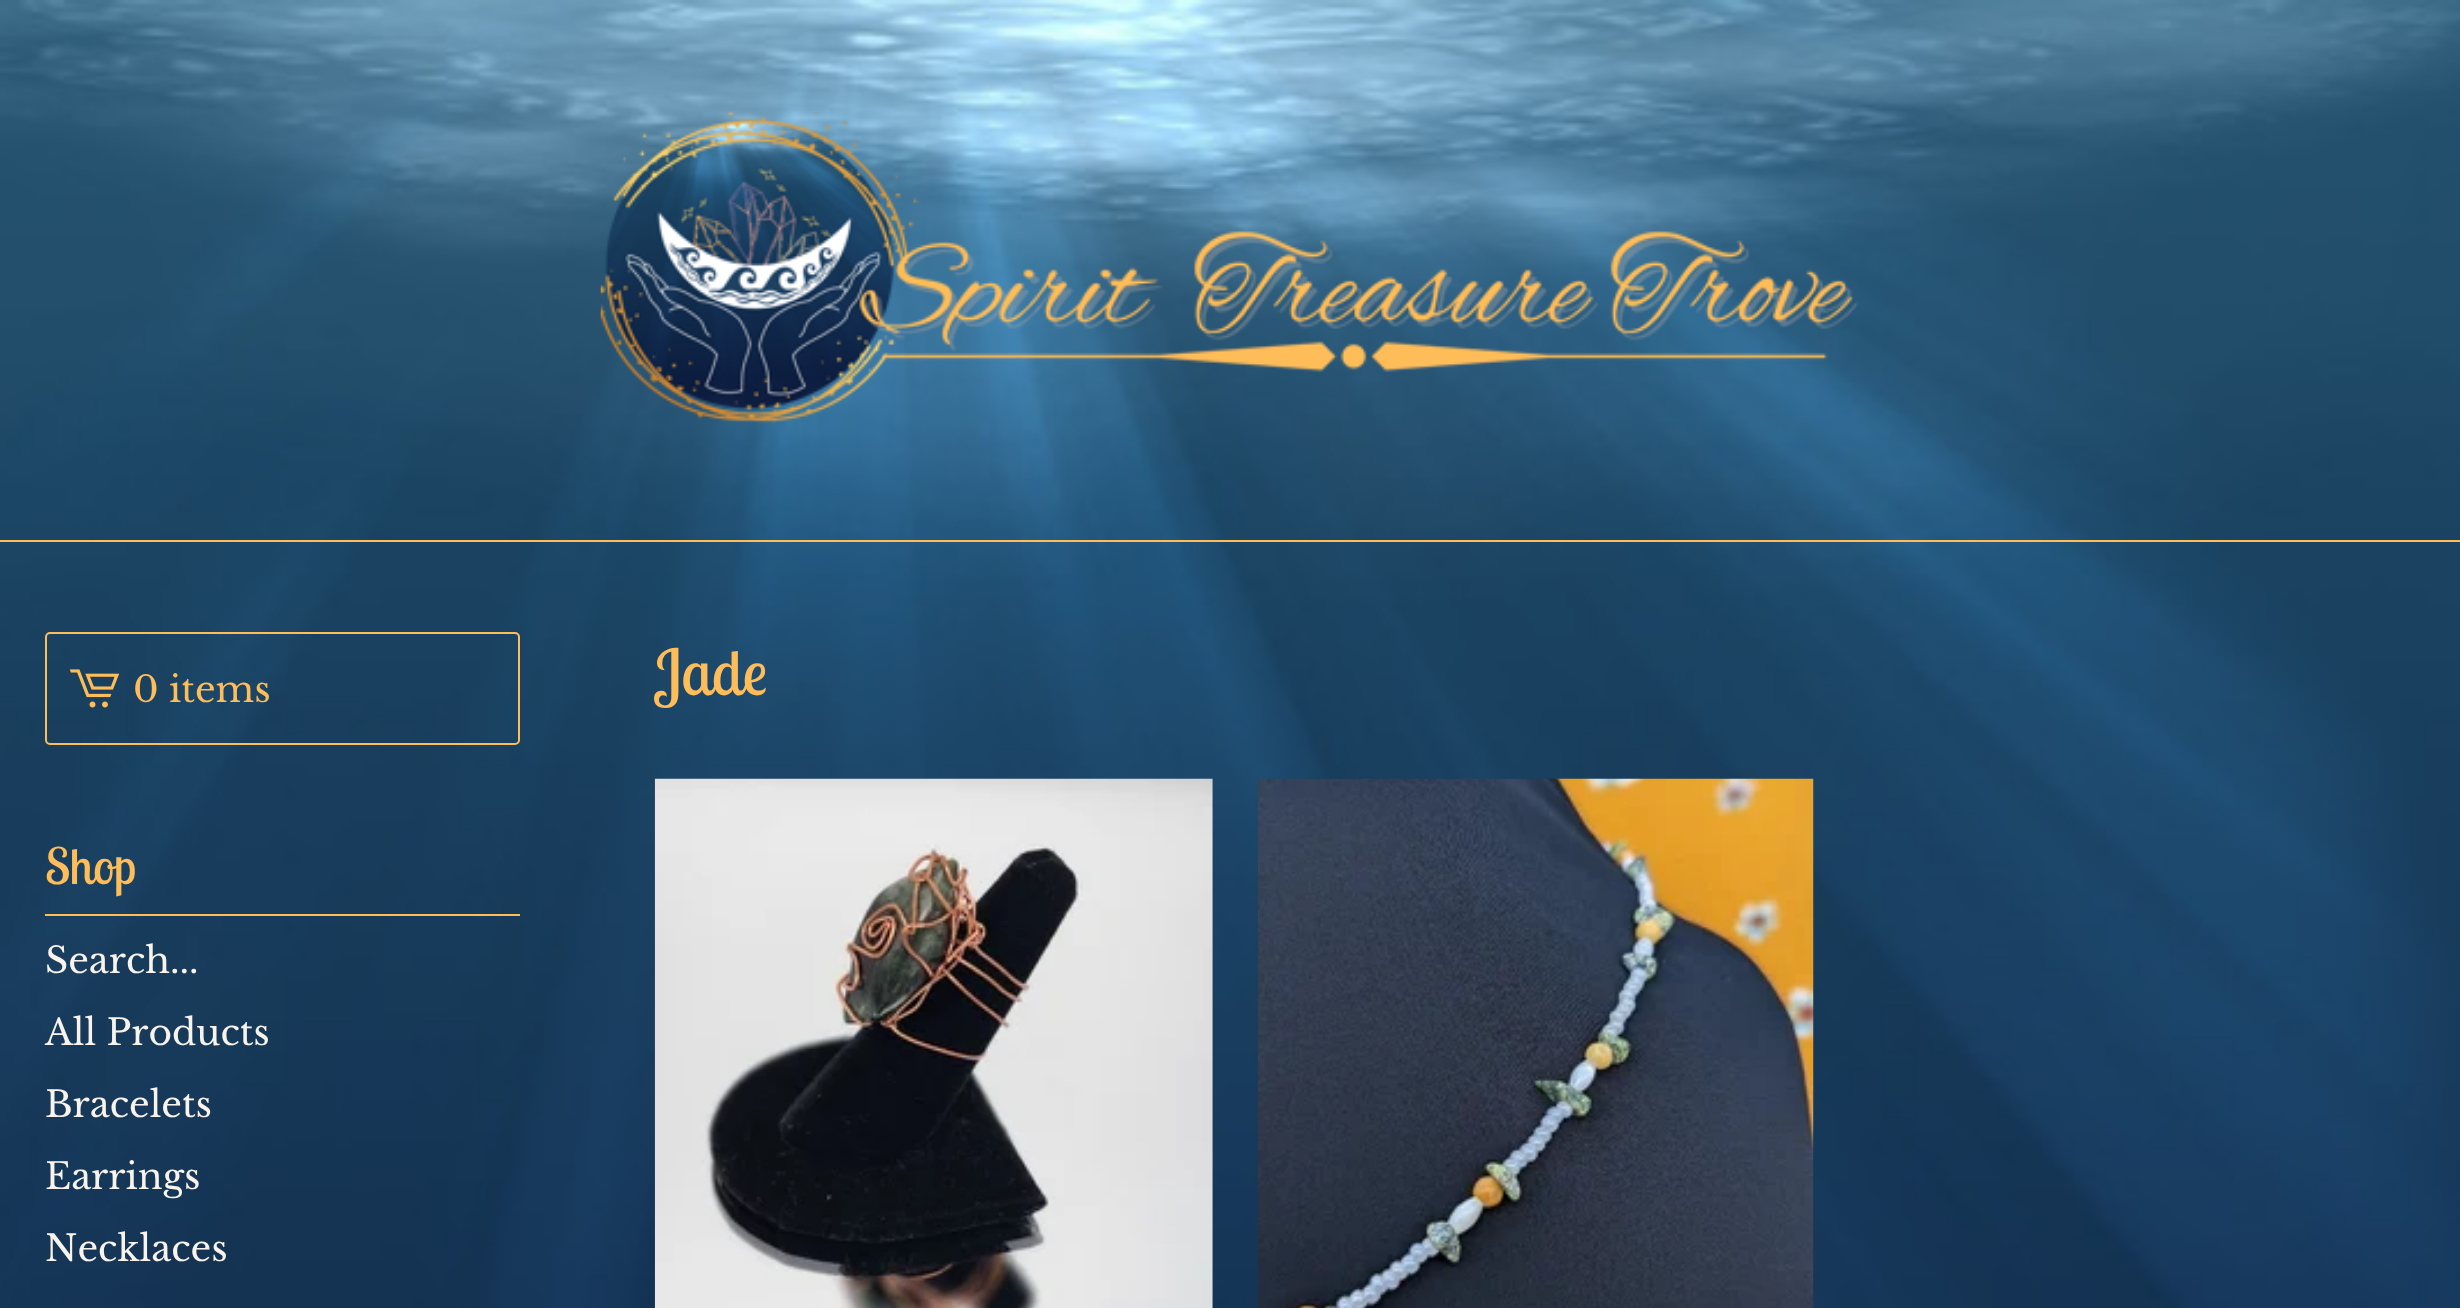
<!DOCTYPE html>
<meta charset="utf-8">
<style>body { margin: 0 } canvas { display: block }</style>
<canvas id="canvas" width="2460" height="1308"></canvas>
<img id="img1" src="images/1.png" hidden>
<img id="img2" src="images/2.png" hidden>
<img id="img3" src="images/3.png" hidden>
<img id="img4" src="images/4.png" hidden>
<img id="img5" src="images/5.png" hidden>
<script>
window.onload = function () {
    const canvas = document.getElementById('canvas');
    const context = canvas.getContext('2d');
    context.miterLimit = 4;
    context.fontKerning = 'none';

    context.fillStyle = 'rgb(255, 255, 255)';
    context.fillRect(0, 0, 2460, 1308);
    context.drawImage(document.getElementById('img1'), 0, 0, 2460, 1308);
    context.fillStyle = 'rgb(255, 189, 89)';
    context.fillRect(0, 540, 2460, 2);
    context.drawImage(document.getElementById('img2'), 600, 112, 1259, 312);
    context.beginPath();
    context.roundRect(46, 633, 473, 111, 4);
    context.strokeStyle = 'rgb(255, 189, 89)';
    context.lineWidth = 2;
    context.stroke();
    context.drawImage(document.getElementById('img3'), 70, 669, 49, 39);
    context.fillRect(45, 914, 475, 2);
    context.drawImage(document.getElementById('img4'), 654, 778, 559, 530);
    context.drawImage(document.getElementById('img5'), 1258, 778, 556, 530);
    context.font = '36px Libre Baskerville';
    context.fillText('0 items', 133, 702);
    context.font = '50px Lobster Two';
    context.fillText('Shop', 45, 884);
    context.font = '36px Libre Baskerville';
    context.fillStyle = 'rgb(248, 244, 236)';
    context.fillText('Search...', 45, 973);
    context.fillText('All Products', 45, 1045);
    context.fillText('Bracelets', 45, 1117);
    context.fillText('Earrings', 45, 1189);
    context.fillText('Necklaces', 45, 1261);
    context.font = '63px Lobster Two';
    context.fillStyle = 'rgb(255, 189, 89)';
    context.fillText('Jade', 654, 695);
};
</script>
